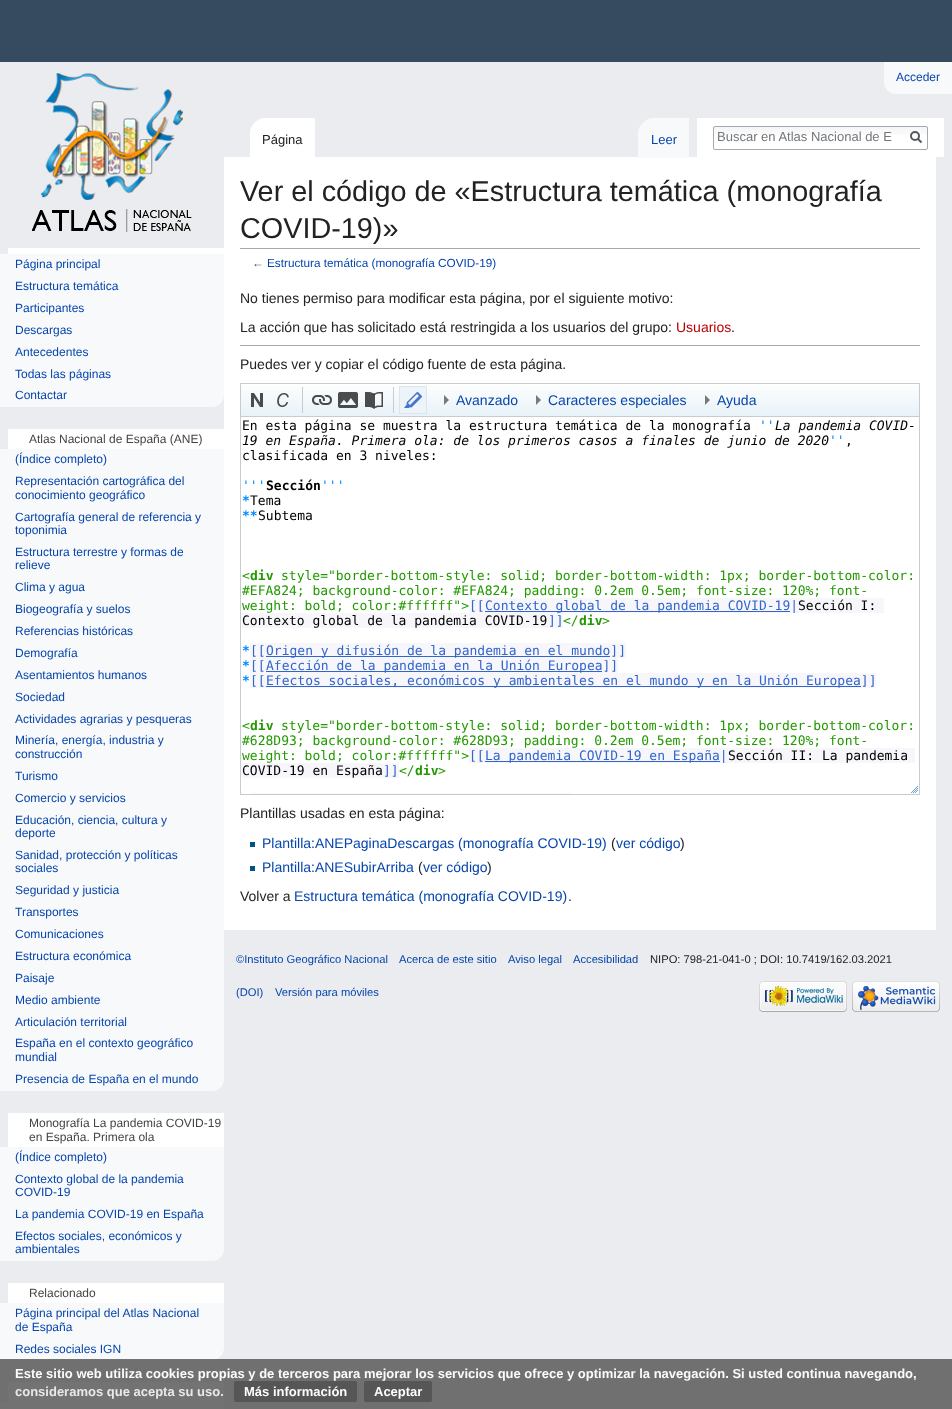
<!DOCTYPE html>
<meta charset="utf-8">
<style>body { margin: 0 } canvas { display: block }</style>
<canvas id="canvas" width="952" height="1409"></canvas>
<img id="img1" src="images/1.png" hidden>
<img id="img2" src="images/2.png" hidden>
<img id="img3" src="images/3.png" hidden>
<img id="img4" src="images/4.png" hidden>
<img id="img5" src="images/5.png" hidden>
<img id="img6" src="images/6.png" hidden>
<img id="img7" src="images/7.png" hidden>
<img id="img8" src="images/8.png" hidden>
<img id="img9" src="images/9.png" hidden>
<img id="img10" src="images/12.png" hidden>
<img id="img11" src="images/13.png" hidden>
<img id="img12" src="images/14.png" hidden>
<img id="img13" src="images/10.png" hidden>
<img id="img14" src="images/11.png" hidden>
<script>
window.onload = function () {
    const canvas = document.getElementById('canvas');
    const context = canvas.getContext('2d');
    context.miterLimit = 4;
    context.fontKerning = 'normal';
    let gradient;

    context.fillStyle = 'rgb(234, 236, 240)';
    context.fillRect(0, 0, 952, 1409);
    context.fillStyle = 'rgb(54, 75, 95)';
    context.fillRect(0, 0, 952, 62);
    context.fillStyle = 'rgb(248, 249, 250)';
    context.beginPath();
    context.roundRect(884, 62, 68, 32, [0, 0, 0, 12]);
    context.fill();
    context.fillStyle = 'rgb(255, 255, 255)';
    context.fillRect(224, 157, 712, 773);
    context.fillStyle = 'rgb(248, 249, 250)';
    context.beginPath();
    context.roundRect(250, 118, 65, 40, [16, 0, 0, 0]);
    context.fill();
    context.drawImage(document.getElementById('img1'), 250, 118, 65, 40);
    context.beginPath();
    context.roundRect(638, 118, 51, 40, [16, 0, 0, 0]);
    context.fill();
    context.fillStyle = 'rgb(255, 255, 255)';
    context.fillRect(697, 118, 247, 39);
    context.drawImage(document.getElementById('img2'), 713, 127, 215, 8);
    context.beginPath();
    context.roundRect(713.5, 126.5, 214, 23, 1.5);
    context.strokeStyle = 'rgb(162, 169, 177)';
    context.stroke();
    context.beginPath();
    context.moveTo(921.5, 142.5);
    context.lineTo(917.5, 138.5);
    context.strokeStyle = 'rgb(84, 89, 93)';
    context.lineWidth = 2;
    context.stroke();
    context.beginPath();
    context.arc(915, 136, 4, 0, 2 * Math.PI);
    context.stroke();
    context.drawImage(document.getElementById('img3'), 32, 73, 160, 159);
    context.fillRect(8, 248, 216, 6);
    context.fillStyle = 'rgb(248, 249, 250)';
    context.fillRect(0, 254, 224, 131);
    context.beginPath();
    context.roundRect(0, 385, 224, 22, [0, 0, 12, 0]);
    context.fill();
    context.fillStyle = 'rgb(255, 255, 255)';
    context.fillRect(8, 429, 216, 20);
    context.fillStyle = 'rgb(248, 249, 250)';
    context.fillRect(0, 449, 224, 620);
    context.beginPath();
    context.roundRect(0, 1069, 224, 22, [0, 0, 12, 0]);
    context.fill();
    context.fillStyle = 'rgb(255, 255, 255)';
    context.fillRect(8, 1113, 216, 34);
    context.fillStyle = 'rgb(248, 249, 250)';
    context.fillRect(0, 1147, 224, 79);
    context.beginPath();
    context.roundRect(0, 1226, 224, 35, [0, 0, 12, 0]);
    context.fill();
    context.fillStyle = 'rgb(255, 255, 255)';
    context.fillRect(8, 1283, 216, 20);
    context.fillStyle = 'rgb(248, 249, 250)';
    context.fillRect(0, 1303, 224, 35);
    context.beginPath();
    context.roundRect(0, 1338, 224, 22, [0, 0, 12, 0]);
    context.fill();
    context.fillStyle = 'rgb(255, 255, 255)';
    context.fillRect(8, 1382, 216, 20);
    context.fillStyle = 'rgb(248, 249, 250)';
    context.fillRect(0, 1402, 224, 7);
    context.fillStyle = 'rgb(162, 169, 177)';
    context.fillRect(240, 248, 680, 1);
    context.fillRect(240, 345, 680, 1);
    context.strokeStyle = 'rgb(200, 204, 209)';
    context.lineWidth = 1;
    context.strokeRect(240.5, 383.5, 679, 411);
    context.fillStyle = 'rgb(200, 204, 209)';
    context.fillRect(241, 416, 678, 1);
    gradient = context.createLinearGradient(580, 384, 580, 416);
    gradient.addColorStop(0, 'rgb(253, 254, 254)');
    gradient.addColorStop(1, 'rgb(232, 242, 248)');
    context.fillStyle = gradient;
    context.fillRect(241, 385, 678, 31);
    context.fillStyle = 'rgb(200, 204, 209)';
    context.fillRect(302, 387, 1, 26);
    context.drawImage(document.getElementById('img4'), 251, 393, 12, 14);
    context.drawImage(document.getElementById('img5'), 277, 393, 12, 14);
    context.fillRect(393, 387, 1, 26);
    context.drawImage(document.getElementById('img6'), 312, 395, 20, 10);
    context.drawImage(document.getElementById('img7'), 338, 392, 20, 16);
    context.drawImage(document.getElementById('img8'), 365, 392, 18, 17);
    context.fillStyle = 'rgb(236, 244, 249)';
    context.fillRect(400, 387, 26, 19);
    context.strokeStyle = 'rgb(218, 229, 236)';
    context.strokeRect(399.5, 386.5, 27, 27);
    context.drawImage(document.getElementById('img9'), 404, 392, 18, 16);
    context.fillStyle = 'rgb(121, 121, 121)';
    context.beginPath();
    context.moveTo(444, 395);
    context.lineTo(449, 400);
    context.lineTo(444, 405);
    context.closePath();
    context.fill();
    context.beginPath();
    context.moveTo(536, 395);
    context.lineTo(541, 400);
    context.lineTo(536, 405);
    context.closePath();
    context.fill();
    context.beginPath();
    context.moveTo(705, 395);
    context.lineTo(710, 400);
    context.lineTo(705, 405);
    context.closePath();
    context.fill();
    context.fillStyle = 'rgb(246, 246, 251)';
    context.fillRect(469, 598, 329, 15);
    context.fillStyle = 'rgb(51, 102, 204)';
    context.fillRect(485, 611, 305, 1);
    context.fillStyle = 'rgb(246, 246, 251)';
    context.fillRect(250, 643, 376, 15);
    context.fillStyle = 'rgb(51, 102, 204)';
    context.fillRect(266, 656, 344, 1);
    context.fillStyle = 'rgb(246, 246, 251)';
    context.fillRect(250, 658, 368, 15);
    context.fillStyle = 'rgb(51, 102, 204)';
    context.fillRect(266, 671, 336, 1);
    context.fillStyle = 'rgb(246, 246, 251)';
    context.fillRect(250, 673, 626, 15);
    context.fillStyle = 'rgb(51, 102, 204)';
    context.fillRect(266, 686, 595, 1);
    context.fillStyle = 'rgb(246, 246, 251)';
    context.fillRect(469, 748, 259, 15);
    context.fillStyle = 'rgb(51, 102, 204)';
    context.fillRect(485, 761, 235, 1);
    context.fillStyle = 'rgb(246, 246, 251)';
    context.fillRect(250, 793, 321, 1);
    context.drawImage(document.getElementById('img10'), 911, 786, 7, 7);
    context.fillStyle = 'rgb(0, 82, 140)';
    context.fillRect(250, 842, 5, 5);
    context.fillRect(250, 866, 5, 5);
    context.drawImage(document.getElementById('img11'), 759, 981, 88, 31);
    context.drawImage(document.getElementById('img12'), 852, 981, 88, 31);
    context.fillStyle = 'rgba(90, 90, 90, 0.85)';
    context.fillRect(0, 1359, 952, 50);
    context.fillStyle = 'rgb(86, 86, 87)';
    context.beginPath();
    context.roundRect(234, 1381, 123, 21, 2);
    context.fill();
    context.beginPath();
    context.roundRect(364, 1381, 68, 21, 2);
    context.fill();
    context.font = '12px Liberation Sans';
    context.fillStyle = 'rgb(6, 69, 173)';
    context.fillText('Acceder', 896, 81);
    context.font = '13px Liberation Sans';
    context.fillStyle = 'rgb(34, 34, 34)';
    context.fillText('Página', 262, 144);
    context.fillStyle = 'rgb(6, 69, 173)';
    context.fillText('Leer', 651, 144);
    context.fillStyle = 'rgb(114, 119, 125)';
    context.fillText('Buscar en Atlas Nacional de E', 717, 141);
    context.font = '12px Liberation Sans';
    context.fillStyle = 'rgb(6, 69, 173)';
    context.fillText('Página principal', 15, 268);
    context.fillText('Estructura temática', 15, 290);
    context.fillText('Participantes', 15, 312);
    context.fillText('Descargas', 15, 334);
    context.fillText('Antecedentes', 15, 356);
    context.fillText('Todas las páginas', 15, 378);
    context.fillText('Contactar', 15, 399);
    context.fillStyle = 'rgb(68, 68, 68)';
    context.fillText('Atlas Nacional de España (ANE)', 29, 443);
    context.fillStyle = 'rgb(6, 69, 173)';
    context.fillText('(Índice completo)', 15, 463);
    context.fillText('Representación cartográfica del', 15, 485);
    context.fillText('conocimiento geográfico', 15, 499);
    context.fillText('Cartografía general de referencia y', 15, 521);
    context.fillText('toponimia', 15, 534);
    context.fillText('Estructura terrestre y formas de', 15, 556);
    context.fillText('relieve', 15, 569);
    context.fillText('Clima y agua', 15, 591);
    context.fillText('Biogeografía y suelos', 15, 613);
    context.fillText('Referencias históricas', 15, 635);
    context.fillText('Demografía', 15, 657);
    context.fillText('Asentamientos humanos', 15, 679);
    context.fillText('Sociedad', 15, 701);
    context.fillText('Actividades agrarias y pesqueras', 15, 723);
    context.fillText('Minería, energía, industria y', 15, 744);
    context.fillText('construcción', 15, 758);
    context.fillText('Turismo', 15, 780);
    context.fillText('Comercio y servicios', 15, 802);
    context.fillText('Educación, ciencia, cultura y', 15, 824);
    context.fillText('deporte', 15, 837);
    context.fillText('Sanidad, protección y políticas', 15, 859);
    context.fillText('sociales', 15, 872);
    context.fillText('Seguridad y justicia', 15, 894);
    context.fillText('Transportes', 15, 916);
    context.fillText('Comunicaciones', 15, 938);
    context.fillText('Estructura económica', 15, 960);
    context.fillText('Paisaje', 15, 982);
    context.fillText('Medio ambiente', 15, 1004);
    context.fillText('Articulación territorial', 15, 1026);
    context.fillText('España en el contexto geográfico', 15, 1047);
    context.fillText('mundial', 15, 1061);
    context.fillText('Presencia de España en el mundo', 15, 1083);
    context.fillStyle = 'rgb(68, 68, 68)';
    context.fillText('Monografía La pandemia COVID-19', 29, 1127);
    context.fillText('en España. Primera ola', 29, 1141);
    context.fillStyle = 'rgb(6, 69, 173)';
    context.fillText('(Índice completo)', 15, 1161);
    context.fillText('Contexto global de la pandemia', 15, 1183);
    context.fillText('COVID-19', 15, 1196);
    context.fillText('La pandemia COVID-19 en España', 15, 1218);
    context.fillText('Efectos sociales, económicos y', 15, 1240);
    context.fillText('ambientales', 15, 1253);
    context.fillStyle = 'rgb(68, 68, 68)';
    context.fillText('Relacionado', 29, 1297);
    context.fillStyle = 'rgb(6, 69, 173)';
    context.fillText('Página principal del Atlas Nacional', 15, 1317);
    context.fillText('de España', 15, 1331);
    context.fillText('Redes sociales IGN', 15, 1353);
    context.font = '28.8px Liberation Sans';
    context.fillStyle = 'rgb(34, 34, 34)';
    context.fillText('Ver el código de «Estructura temática (monografía', 240, 201);
    context.fillText('COVID-19)»', 240, 238);
    context.font = '11.75px Liberation Sans';
    context.fillStyle = 'rgb(84, 89, 93)';
    context.fillText('←', 252, 267);
    context.fillStyle = 'rgb(6, 69, 173)';
    context.fillText('Estructura temática (monografía COVID-19)', 267, 267);
    context.font = '14px Liberation Sans';
    context.fillStyle = 'rgb(34, 34, 34)';
    context.fillText('No tienes permiso para modificar esta página, por el siguiente motivo:', 240, 303);
    context.fillText('La acción que has solicitado está restringida a los usuarios del grupo:', 240, 332);
    context.fillStyle = 'rgb(186, 0, 0)';
    context.fillText('Usuarios', 676, 332);
    context.fillStyle = 'rgb(34, 34, 34)';
    context.fillText('.', 731, 332);
    context.fillText('Puedes ver y copiar el código fuente de esta página.', 240, 369);
    context.fillStyle = 'rgb(6, 69, 173)';
    context.fillText('Avanzado', 456, 405);
    context.fillText('Caracteres especiales', 548, 405);
    context.fillText('Ayuda', 717, 405);
    context.font = '13px DejaVu Sans Mono';
    context.fillStyle = 'rgb(0, 0, 0)';
    context.fillText('En esta página se muestra la estructura temática de la monografía', 242, 430);
    context.fillStyle = 'rgb(0, 136, 255)';
    context.fillText('\'\'', 759, 430);
    context.font = 'italic 13px DejaVu Sans Mono';
    context.fillStyle = 'rgb(0, 0, 0)';
    context.fillText('La pandemia COVID-', 775, 430);
    context.fillText('19 en España. Primera ola: de los primeros casos a finales de junio de 2020', 242, 445);
    context.font = '13px DejaVu Sans Mono';
    context.fillStyle = 'rgb(0, 136, 255)';
    context.fillText('\'\'', 829, 445);
    context.fillStyle = 'rgb(0, 0, 0)';
    context.fillText(',', 845, 445);
    context.fillText('clasificada en 3 niveles:', 242, 460);
    context.fillStyle = 'rgb(0, 136, 255)';
    context.fillText('\'\'\'', 242, 490);
    context.font = 'bold 13px DejaVu Sans Mono';
    context.fillStyle = 'rgb(0, 0, 0)';
    context.fillText('Sección', 266, 490);
    context.font = '13px DejaVu Sans Mono';
    context.fillStyle = 'rgb(0, 136, 255)';
    context.fillText('\'\'\'', 321, 490);
    context.font = 'bold 13px DejaVu Sans Mono';
    context.fillText('*', 242, 505);
    context.font = '13px DejaVu Sans Mono';
    context.fillStyle = 'rgb(0, 0, 0)';
    context.fillText('Tema', 250, 505);
    context.font = 'bold 13px DejaVu Sans Mono';
    context.fillStyle = 'rgb(0, 136, 255)';
    context.fillText('**', 242, 520);
    context.font = '13px DejaVu Sans Mono';
    context.fillStyle = 'rgb(0, 0, 0)';
    context.fillText('Subtema', 258, 520);
    context.fillStyle = 'rgb(34, 153, 0)';
    context.fillText('<', 242, 580);
    context.font = 'bold 13px DejaVu Sans Mono';
    context.fillText('div', 250, 580);
    context.font = '13px DejaVu Sans Mono';
    context.fillText('style="border-bottom-style: solid; border-bottom-width: 1px; border-bottom-color:', 281, 580);
    context.fillText('#EFA824; background-color: #EFA824; padding: 0.2em 0.5em; font-size: 120%; font-', 242, 595);
    context.fillText('weight: bold; color:#ffffff">', 242, 610);
    context.fillStyle = 'rgb(51, 102, 204)';
    context.fillText('[[', 469, 610);
    context.fillText('Contexto global de la pandemia COVID-19|', 485, 610);
    context.drawImage(document.getElementById('img13'), 242, 598, 642, 30);
    context.fillStyle = 'rgb(0, 0, 0)';
    context.fillText('Sección I:', 798, 610);
    context.fillText('Contexto global de la pandemia COVID-19', 242, 625);
    context.fillStyle = 'rgb(246, 246, 251)';
    context.fillRect(548, 613, 15, 15);
    context.fillStyle = 'rgb(51, 102, 204)';
    context.fillText(']]', 548, 625);
    context.fillStyle = 'rgb(34, 153, 0)';
    context.fillText('<\/', 563, 625);
    context.font = 'bold 13px DejaVu Sans Mono';
    context.fillText('div', 579, 625);
    context.font = '13px DejaVu Sans Mono';
    context.fillText('>', 602, 625);
    context.font = 'bold 13px DejaVu Sans Mono';
    context.fillStyle = 'rgb(0, 136, 255)';
    context.fillText('*', 242, 655);
    context.font = '13px DejaVu Sans Mono';
    context.fillStyle = 'rgb(51, 102, 204)';
    context.fillText('[[', 250, 655);
    context.fillText('Origen y difusión de la pandemia en el mundo]]', 266, 655);
    context.font = 'bold 13px DejaVu Sans Mono';
    context.fillStyle = 'rgb(0, 136, 255)';
    context.fillText('*', 242, 670);
    context.font = '13px DejaVu Sans Mono';
    context.fillStyle = 'rgb(51, 102, 204)';
    context.fillText('[[', 250, 670);
    context.fillText('Afección de la pandemia en la Unión Europea]]', 266, 670);
    context.font = 'bold 13px DejaVu Sans Mono';
    context.fillStyle = 'rgb(0, 136, 255)';
    context.fillText('*', 242, 685);
    context.font = '13px DejaVu Sans Mono';
    context.fillStyle = 'rgb(51, 102, 204)';
    context.fillText('[[', 250, 685);
    context.fillText('Efectos sociales, económicos y ambientales en el mundo y en la Unión Europea]]', 266, 685);
    context.fillStyle = 'rgb(34, 153, 0)';
    context.fillText('<', 242, 730);
    context.font = 'bold 13px DejaVu Sans Mono';
    context.fillText('div', 250, 730);
    context.font = '13px DejaVu Sans Mono';
    context.fillText('style="border-bottom-style: solid; border-bottom-width: 1px; border-bottom-color:', 281, 730);
    context.fillText('#628D93; background-color: #628D93; padding: 0.2em 0.5em; font-size: 120%; font-', 242, 745);
    context.fillText('weight: bold; color:#ffffff">', 242, 760);
    context.fillStyle = 'rgb(51, 102, 204)';
    context.fillText('[[', 469, 760);
    context.fillText('La pandemia COVID-19 en España|', 485, 760);
    context.drawImage(document.getElementById('img14'), 242, 748, 673, 30);
    context.fillStyle = 'rgb(0, 0, 0)';
    context.fillText('Sección II: La pandemia', 728, 760);
    context.fillText('COVID-19 en España', 242, 775);
    context.fillStyle = 'rgb(246, 246, 251)';
    context.fillRect(383, 763, 16, 15);
    context.fillStyle = 'rgb(51, 102, 204)';
    context.fillText(']]', 383, 775);
    context.fillStyle = 'rgb(34, 153, 0)';
    context.fillText('<\/', 399, 775);
    context.font = 'bold 13px DejaVu Sans Mono';
    context.fillText('div', 415, 775);
    context.font = '13px DejaVu Sans Mono';
    context.fillText('>', 438, 775);
    context.font = '14px Liberation Sans';
    context.fillStyle = 'rgb(34, 34, 34)';
    context.fillText('Plantillas usadas en esta página:', 240, 818);
    context.fillStyle = 'rgb(6, 69, 173)';
    context.fillText('Plantilla:ANEPaginaDescargas (monografía COVID-19)', 262, 848);
    context.fillStyle = 'rgb(34, 34, 34)';
    context.fillText('(', 611, 848);
    context.fillStyle = 'rgb(6, 69, 173)';
    context.fillText('ver código', 616, 848);
    context.fillStyle = 'rgb(34, 34, 34)';
    context.fillText(')', 680, 848);
    context.fillStyle = 'rgb(6, 69, 173)';
    context.fillText('Plantilla:ANESubirArriba', 262, 872);
    context.fillStyle = 'rgb(34, 34, 34)';
    context.fillText('(', 418, 872);
    context.fillStyle = 'rgb(6, 69, 173)';
    context.fillText('ver código', 423, 872);
    context.fillStyle = 'rgb(34, 34, 34)';
    context.fillText(')', 487, 872);
    context.fillText('Volver a', 240, 901);
    context.fillStyle = 'rgb(6, 69, 173)';
    context.fillText('Estructura temática (monografía COVID-19)', 294, 901);
    context.fillStyle = 'rgb(34, 34, 34)';
    context.fillText('.', 568, 901);
    context.font = '11.2px Liberation Sans';
    context.fillStyle = 'rgb(6, 69, 173)';
    context.fillText('©Instituto Geográfico Nacional', 236, 963);
    context.fillText('Acerca de este sitio', 399, 963);
    context.fillText('Aviso legal', 508, 963);
    context.fillText('Accesibilidad', 573, 963);
    context.fillStyle = 'rgb(34, 34, 34)';
    context.fillText('NIPO: 798-21-041-0 ; DOI: 10.7419/162.03.2021', 650, 963);
    context.fillStyle = 'rgb(6, 69, 173)';
    context.fillText('(DOI)', 236, 996);
    context.fillText('Versión para móviles', 275, 996);
    context.font = 'bold 13px Liberation Sans';
    context.fillStyle = 'rgb(252, 252, 253)';
    context.fillText('Este sitio web utiliza cookies propias y de terceros para mejorar los servicios que ofrece y optimizar la navegación. Si usted continua navegando,', 15, 1378);
    context.fillStyle = 'rgb(233, 233, 233)';
    context.fillText('consideramos que acepta su uso.', 15, 1396);
    context.fillStyle = 'rgb(252, 252, 253)';
    context.fillText('Más información', 244, 1396);
    context.fillText('Aceptar', 374, 1396);
};
</script>
